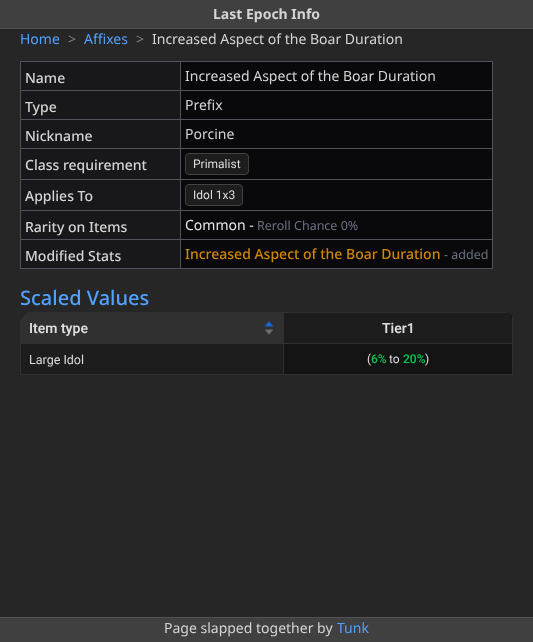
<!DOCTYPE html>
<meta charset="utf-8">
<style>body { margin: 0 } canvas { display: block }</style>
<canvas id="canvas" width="533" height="642"></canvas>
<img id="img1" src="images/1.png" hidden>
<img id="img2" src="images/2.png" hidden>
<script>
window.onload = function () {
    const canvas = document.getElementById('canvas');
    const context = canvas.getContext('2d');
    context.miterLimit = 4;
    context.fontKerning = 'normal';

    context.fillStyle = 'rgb(38, 38, 38)';
    context.fillRect(0, 0, 533, 642);
    context.fillStyle = 'rgb(64, 64, 64)';
    context.fillRect(0, 0, 533, 28);
    context.fillStyle = 'rgb(82, 82, 82)';
    context.fillRect(0, 28, 533, 1);
    context.fillStyle = 'rgb(9, 9, 11)';
    context.fillRect(181, 62, 311, 206);
    context.fillStyle = 'rgb(82, 82, 92)';
    context.fillRect(20, 61, 473, 1);
    context.fillRect(492, 61, 1, 208);
    context.fillRect(20, 268, 473, 1);
    context.fillRect(20, 61, 1, 208);
    context.fillStyle = 'rgb(24, 24, 27)';
    context.fillRect(21, 62, 159, 28);
    context.fillStyle = 'rgb(82, 82, 92)';
    context.fillRect(180, 90, 313, 1);
    context.fillRect(180, 119, 313, 1);
    context.fillRect(180, 148, 313, 1);
    context.fillRect(180, 179, 313, 1);
    context.fillRect(180, 210, 313, 1);
    context.fillRect(180, 239, 313, 1);
    context.fillRect(180, 239, 1, 30);
    context.fillRect(20, 239, 161, 1);
    context.fillRect(180, 210, 1, 30);
    context.fillRect(20, 210, 161, 1);
    context.fillRect(180, 179, 1, 32);
    context.fillRect(20, 179, 161, 1);
    context.fillRect(180, 148, 1, 32);
    context.fillRect(20, 148, 161, 1);
    context.fillRect(180, 119, 1, 30);
    context.fillRect(20, 119, 161, 1);
    context.fillRect(180, 90, 1, 30);
    context.fillRect(20, 90, 161, 1);
    context.fillRect(180, 61, 1, 30);
    context.fillStyle = 'rgb(24, 24, 27)';
    context.fillRect(21, 91, 159, 28);
    context.fillRect(21, 120, 159, 28);
    context.fillRect(21, 149, 159, 30);
    context.fillStyle = 'rgb(29, 29, 29)';
    context.beginPath();
    context.roundRect(185.5, 153.5, 63, 21, 3.5);
    context.fill();
    context.strokeStyle = 'rgb(66, 66, 66)';
    context.stroke();
    context.fillStyle = 'rgb(24, 24, 27)';
    context.fillRect(21, 180, 159, 30);
    context.fillStyle = 'rgb(29, 29, 29)';
    context.beginPath();
    context.roundRect(185.5, 184.5, 57, 21, 3.5);
    context.fill();
    context.stroke();
    context.fillStyle = 'rgb(24, 24, 27)';
    context.fillRect(21, 211, 159, 28);
    context.fillRect(21, 240, 159, 28);
    context.fillStyle = 'rgb(20, 20, 20)';
    context.beginPath();
    context.roundRect(20, 312, 493, 63, [8, 8, 0, 0]);
    context.fill();
    context.fillStyle = 'rgb(48, 48, 48)';
    context.beginPath();
    context.moveTo(28, 312);
    context.lineTo(505, 312);
    context.bezierCurveTo(509, 312, 513, 316, 513, 320);
    context.lineTo(513, 375);
    context.lineTo(20, 375);
    context.lineTo(20, 320);
    context.bezierCurveTo(20, 316, 24, 312, 28, 312);
    context.closePath();
    context.moveTo(28, 313);
    context.lineTo(505, 313);
    context.bezierCurveTo(509, 313, 513, 316, 513, 320);
    context.lineTo(513, 375);
    context.lineTo(21, 375);
    context.lineTo(21, 320);
    context.bezierCurveTo(21, 316, 24, 313, 28, 313);
    context.closePath();
    context.fill('evenodd');
    context.beginPath();
    context.roundRect(21, 313, 262, 30, [8, 0, 0, 0]);
    context.fill();
    context.fillRect(283, 313, 1, 62);
    context.fillRect(21, 343, 263, 1);
    context.drawImage(document.getElementById('img1'), 264, 321, 10, 6);
    context.drawImage(document.getElementById('img2'), 265, 329, 8, 6);
    context.fillStyle = 'rgb(29, 29, 29)';
    context.beginPath();
    context.moveTo(284, 313);
    context.lineTo(505, 313);
    context.bezierCurveTo(509, 313, 512, 317, 512, 321);
    context.lineTo(512, 343);
    context.lineTo(284, 343);
    context.closePath();
    context.fill();
    context.fillStyle = 'rgb(48, 48, 48)';
    context.fillRect(512, 317, 1, 58);
    context.fillRect(284, 343, 229, 1);
    context.fillStyle = 'rgb(29, 29, 29)';
    context.fillRect(21, 344, 262, 30);
    context.fillStyle = 'rgb(48, 48, 48)';
    context.fillRect(21, 374, 492, 1);
    context.fillStyle = 'rgb(64, 64, 64)';
    context.fillRect(0, 618, 533, 24);
    context.fillStyle = 'rgb(82, 82, 82)';
    context.fillRect(0, 617, 533, 1);
    context.font = 'bold 14px Noto Sans';
    context.fillStyle = 'rgb(212, 212, 212)';
    context.fillText('Last Epoch Info', 213, 19);
    context.font = '14px Noto Sans';
    context.fillStyle = 'rgb(81, 162, 255)';
    context.fillText('Home', 20, 44);
    context.fillStyle = 'rgb(125, 125, 125)';
    context.fillText('>', 68, 44);
    context.fillStyle = 'rgb(81, 162, 255)';
    context.fillText('Affixes', 84, 44);
    context.fillStyle = 'rgb(125, 125, 125)';
    context.fillText('>', 136, 44);
    context.fillStyle = 'rgb(212, 212, 212)';
    context.fillText('Increased Aspect of the Boar Duration', 152, 44);
    context.font = '500 14px Noto Sans';
    context.fillText('Name', 25, 83);
    context.font = '14px Noto Sans';
    context.fillText('Increased Aspect of the Boar Duration', 185, 81);
    context.font = '500 14px Noto Sans';
    context.fillText('Type', 25, 112);
    context.font = '14px Noto Sans';
    context.fillText('Prefix', 185, 110);
    context.font = '500 14px Noto Sans';
    context.fillText('Nickname', 25, 141);
    context.font = '14px Noto Sans';
    context.fillText('Porcine', 185, 139);
    context.font = '500 14px Noto Sans';
    context.fillText('Class requirement', 25, 170);
    context.font = '12px Roboto';
    context.fillStyle = 'rgb(221, 221, 221)';
    context.fillText('Primalist', 193, 168);
    context.font = '500 14px Noto Sans';
    context.fillStyle = 'rgb(212, 212, 212)';
    context.fillText('Applies To', 25, 201);
    context.font = '12px Roboto';
    context.fillStyle = 'rgb(221, 221, 221)';
    context.fillText('Idol 1x3', 193, 199);
    context.font = '500 14px Noto Sans';
    context.fillStyle = 'rgb(212, 212, 212)';
    context.fillText('Rarity on Items', 25, 232);
    context.font = '14px Noto Sans';
    context.fillStyle = 'rgb(230, 230, 231)';
    context.fillText('Common -', 185, 230);
    context.font = '12.5px Noto Sans';
    context.fillStyle = 'rgb(106, 114, 130)';
    context.fillText('Reroll Chance 0%', 257, 230);
    context.font = '500 14px Noto Sans';
    context.fillStyle = 'rgb(212, 212, 212)';
    context.fillText('Modified Stats', 25, 261);
    context.fillStyle = 'rgb(208, 135, 0)';
    context.fillText('Increased Aspect of the Boar Duration', 185, 259);
    context.font = '12.5px Noto Sans';
    context.fillStyle = 'rgb(106, 114, 130)';
    context.fillText('- added', 444, 259);
    context.font = '500 20px Noto Sans';
    context.fillStyle = 'rgb(81, 162, 255)';
    context.fillText('Scaled Values', 20, 305);
    context.font = '600 14px Roboto';
    context.fillStyle = 'rgb(221, 221, 221)';
    context.fillText('Item type', 29, 333);
    context.fillText('Tier1', 382, 333);
    context.font = '12.5px Roboto';
    context.fillText('Large Idol', 29, 364);
    context.font = '12px Roboto';
    context.fillText('(', 367, 363);
    context.font = '500 12px Roboto';
    context.fillStyle = 'rgb(0, 201, 81)';
    context.fillText('6%', 371, 363);
    context.font = '12px Roboto';
    context.fillStyle = 'rgb(221, 221, 221)';
    context.fillText('to', 389, 363);
    context.font = '500 12px Roboto';
    context.fillStyle = 'rgb(0, 201, 81)';
    context.fillText('20%', 403, 363);
    context.font = '12px Roboto';
    context.fillStyle = 'rgb(221, 221, 221)';
    context.fillText(')', 425, 363);
    context.font = '14px Noto Sans';
    context.fillStyle = 'rgb(212, 212, 212)';
    context.fillText('Page slapped together by', 164, 633);
    context.fillStyle = 'rgb(81, 162, 255)';
    context.fillText('Tunk', 337, 633);
};
</script>
